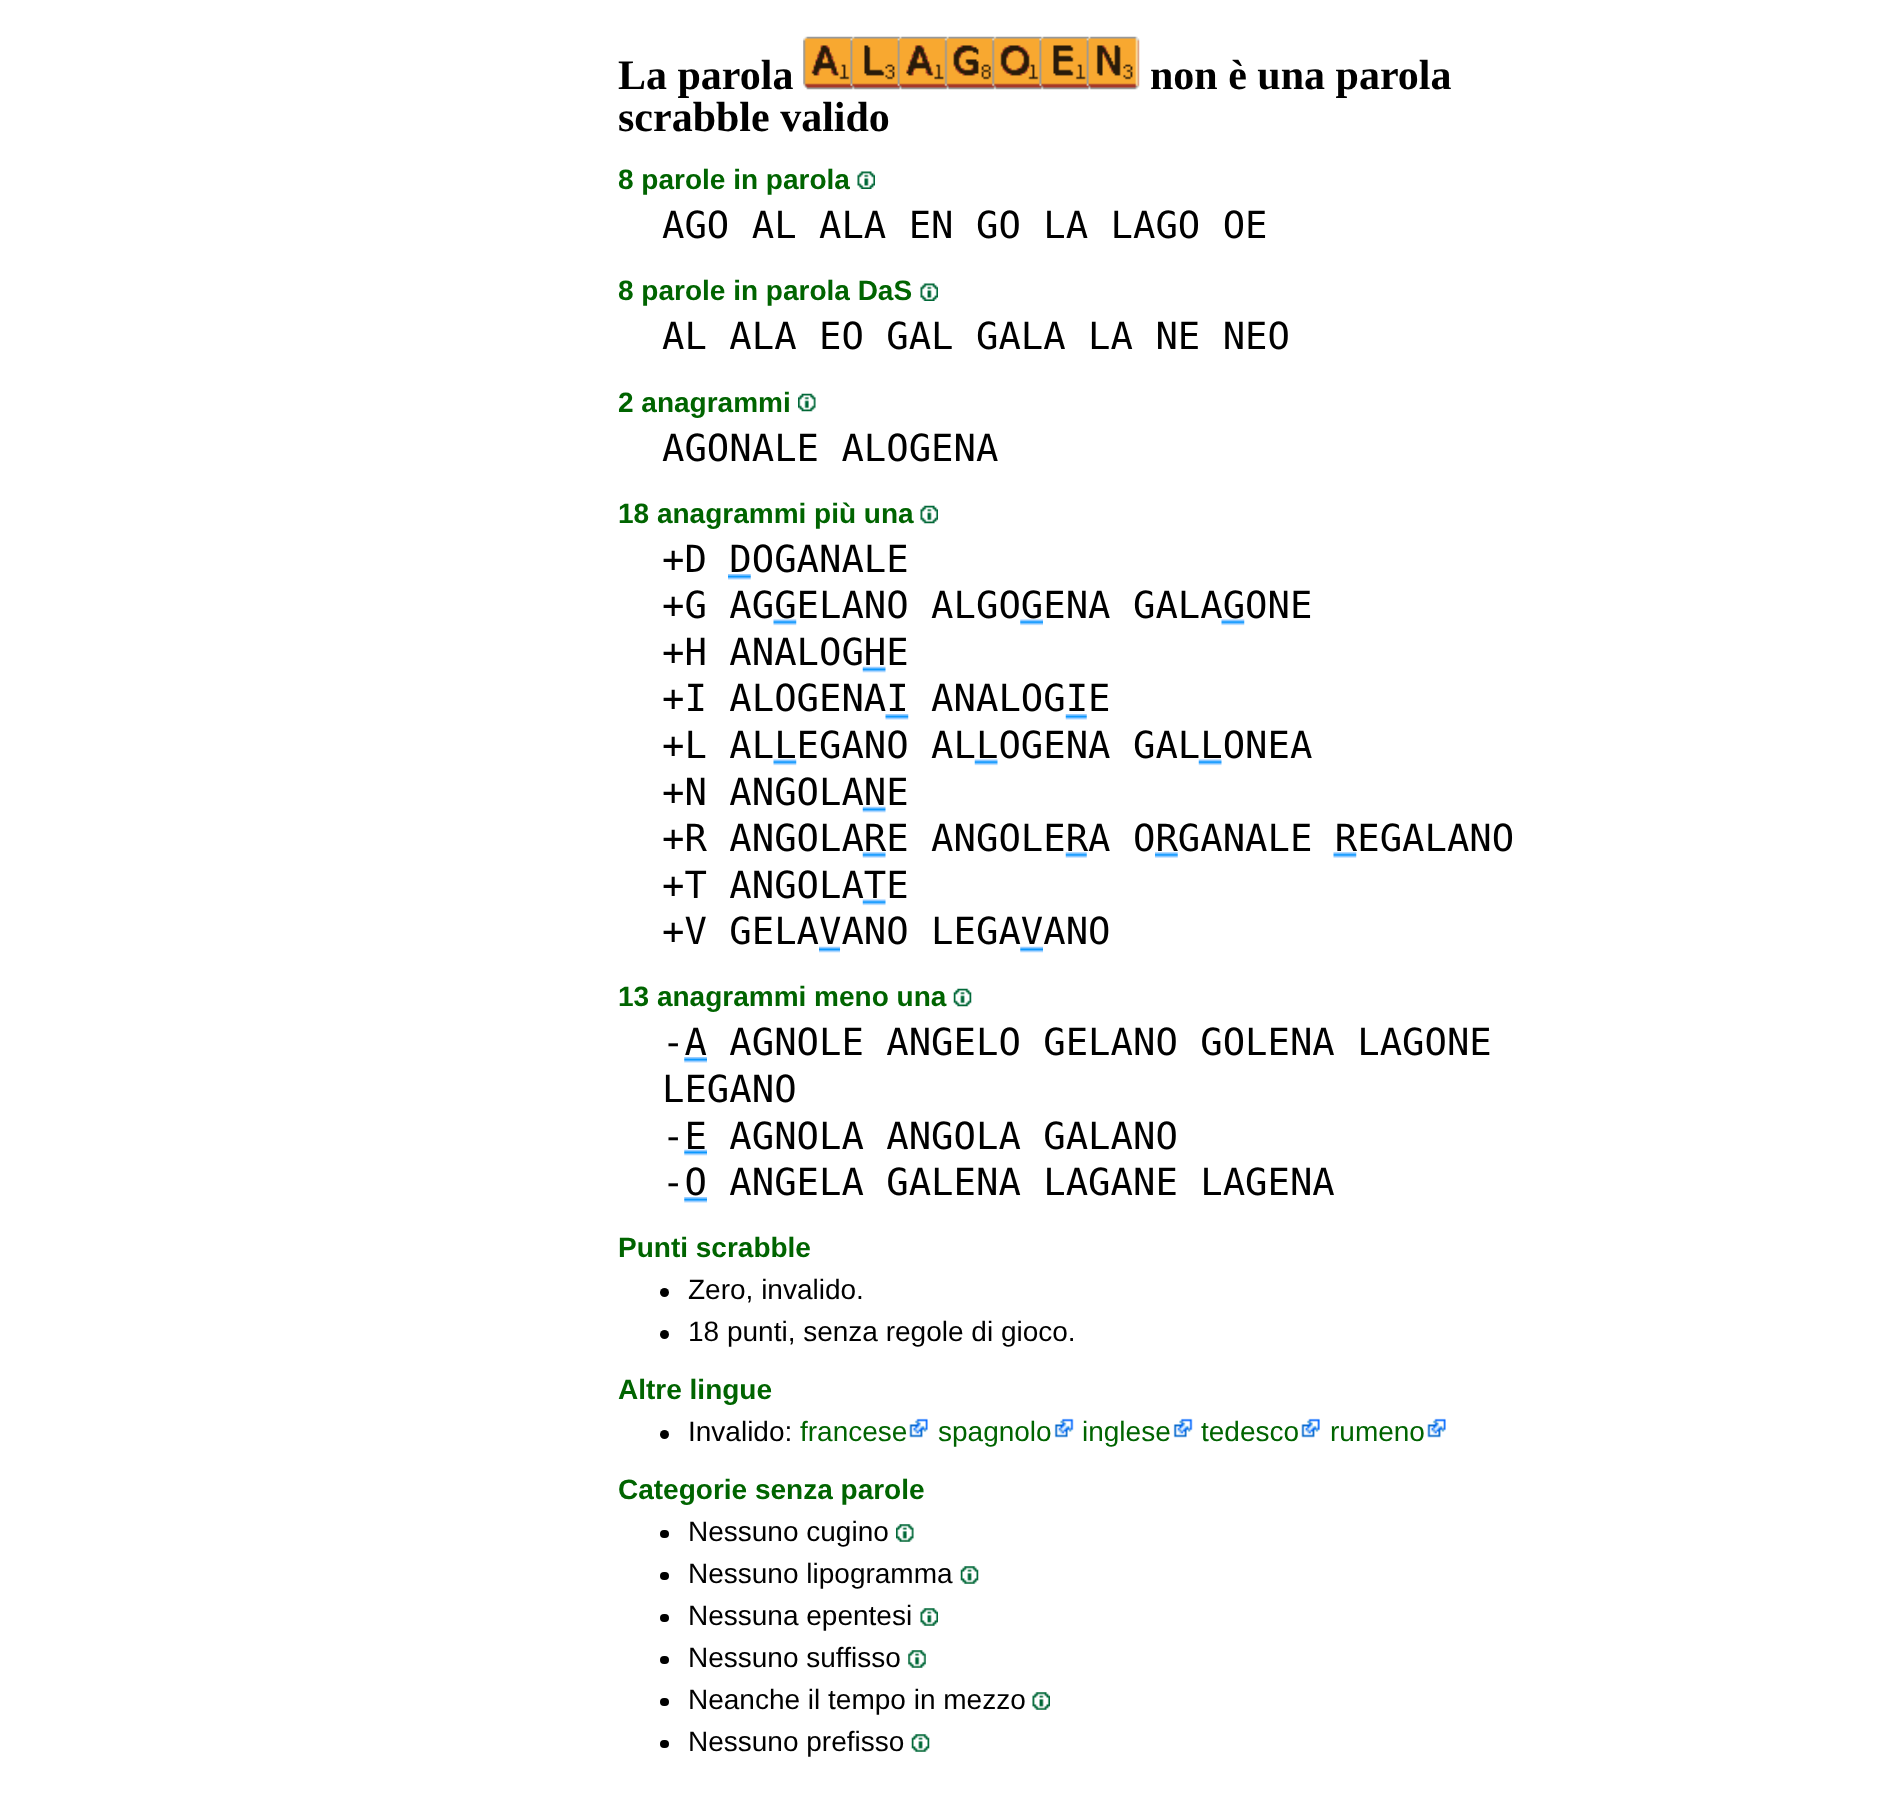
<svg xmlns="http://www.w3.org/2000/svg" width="1897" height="1796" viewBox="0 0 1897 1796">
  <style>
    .t1 { font: bold 42px Liberation Serif; fill: #000; }
    .t2 { font: bold 28px Liberation Sans; fill: #006400; }
    .t3 { font: 37.25px DejaVu Sans Mono; fill: #000; }
    .t4 { font: 28px Liberation Sans; fill: #000; }
    .t5 { font: 28px Liberation Sans; fill: #006400; }
  </style>
  <rect width="100%" height="100%" fill="#fff"/>
  <text x="618" y="89" class="t1">La parola</text>
  <image x="803" y="36" width="337" height="54" href="images/1.png"/>
  <text x="1150" y="89" class="t1">non è una parola</text>
  <text x="618" y="131" class="t1">scrabble valido</text>
  <text x="618" y="189" class="t2">8 parole in parola</text>
  <image x="857" y="171" width="18" height="18" href="images/2.png"/>
  <text x="662" y="238" class="t3">AGO AL ALA EN GO LA LAGO OE</text>
  <text x="618" y="300" class="t2">8 parole in parola DaS</text>
  <image x="920" y="283" width="18" height="18" href="images/3.png"/>
  <text x="662" y="349" class="t3">AL ALA EO GAL GALA LA NE NEO</text>
  <text x="618" y="412" class="t2">2 anagrammi</text>
  <image x="798" y="393" width="18" height="19" href="images/4.png"/>
  <text x="662" y="461" class="t3">AGONALE ALOGENA</text>
  <text x="618" y="523" class="t2">18 anagrammi più una</text>
  <image x="920" y="505" width="18" height="19" href="images/5.png"/>
  <text x="662" y="572" class="t3">+D DOGANALE</text>
  <image x="728" y="574" width="23" height="6" href="images/6.png"/>
  <text x="662" y="618" class="t3">+G AGGELANO ALGOGENA GALAGONE</text>
  <image x="773" y="619" width="24" height="7" href="images/7.png"/>
  <image x="1020" y="619" width="23" height="7" href="images/8.png"/>
  <image x="1221" y="619" width="24" height="7" href="images/7.png"/>
  <text x="662" y="665" class="t3">+H ANALOGHE</text>
  <image x="862" y="666" width="24" height="7" href="images/9.png"/>
  <text x="662" y="711" class="t3">+I ALOGENAI ANALOGIE</text>
  <image x="885" y="714" width="24" height="6" href="images/10.png"/>
  <image x="1065" y="714" width="22" height="6" href="images/11.png"/>
  <text x="662" y="758" class="t3">+L ALLEGANO ALLOGENA GALLONEA</text>
  <image x="773" y="759" width="24" height="7" href="images/7.png"/>
  <image x="974" y="759" width="24" height="7" href="images/12.png"/>
  <image x="1198" y="759" width="24" height="7" href="images/12.png"/>
  <text x="662" y="805" class="t3">+N ANGOLANE</text>
  <image x="862" y="806" width="24" height="7" href="images/13.png"/>
  <text x="662" y="851" class="t3">+R ANGOLARE ANGOLERA ORGANALE REGALANO</text>
  <image x="862" y="852" width="24" height="6" href="images/14.png"/>
  <image x="1065" y="852" width="22" height="6" href="images/15.png"/>
  <image x="1155" y="852" width="23" height="6" href="images/16.png"/>
  <image x="1333" y="852" width="24" height="6" href="images/17.png"/>
  <text x="662" y="898" class="t3">+T ANGOLATE</text>
  <image x="862" y="899" width="24" height="7" href="images/12.png"/>
  <text x="662" y="944" class="t3">+V GELAVANO LEGAVANO</text>
  <image x="819" y="946" width="21" height="7" href="images/18.png"/>
  <image x="1020" y="946" width="23" height="7" href="images/19.png"/>
  <text x="618" y="1006" class="t2">13 anagrammi meno una</text>
  <image x="953" y="988" width="19" height="19" href="images/20.png"/>
  <text x="662" y="1055" class="t3">-A AGNOLE ANGELO GELANO GOLENA LAGONE</text>
  <image x="684" y="1057" width="23" height="6" href="images/21.png"/>
  <text x="662" y="1102" class="t3">LEGANO</text>
  <text x="662" y="1149" class="t3">-E AGNOLA ANGOLA GALANO</text>
  <image x="684" y="1149" width="23" height="7" href="images/22.png"/>
  <text x="662" y="1195" class="t3">-O ANGELA GALENA LAGANE LAGENA</text>
  <image x="684" y="1197" width="23" height="6" href="images/21.png"/>
  <text x="618" y="1257" class="t2">Punti scrabble</text>
  <circle cx="664.5" cy="1292.5" r="4.5" fill="#000"/>
  <text x="688" y="1299" class="t4">Zero, invalido.</text>
  <circle cx="664.5" cy="1334.5" r="4.5" fill="#000"/>
  <text x="688" y="1341" class="t4">18 punti, senza regole di gioco.</text>
  <text x="618" y="1399" class="t2">Altre lingue</text>
  <circle cx="664.5" cy="1434.5" r="4.5" fill="#000"/>
  <text x="688" y="1441" class="t4">Invalido:</text>
  <text x="800" y="1441" class="t5">francese</text>
  <image x="909" y="1418" width="19" height="20" href="images/23.png"/>
  <text x="938" y="1441" class="t5">spagnolo</text>
  <image x="1054" y="1418" width="20" height="20" href="images/24.png"/>
  <text x="1082" y="1441" class="t5">inglese</text>
  <image x="1173" y="1418" width="20" height="20" href="images/24.png"/>
  <text x="1201" y="1441" class="t5">tedesco</text>
  <image x="1301" y="1418" width="19" height="20" href="images/25.png"/>
  <text x="1330" y="1441" class="t5">rumeno</text>
  <image x="1427" y="1418" width="19" height="20" href="images/23.png"/>
  <text x="618" y="1499" class="t2">Categorie senza parole</text>
  <rect x="660" y="1530" width="9" height="8" rx="4" fill="#000"/>
  <text x="688" y="1541" class="t4">Nessuno cugino</text>
  <image x="896" y="1524" width="18" height="18" href="images/26.png"/>
  <rect x="660" y="1572" width="9" height="8" rx="4" fill="#000"/>
  <text x="688" y="1583" class="t4">Nessuno lipogramma</text>
  <image x="960" y="1566" width="19" height="18" href="images/27.png"/>
  <rect x="660" y="1614" width="9" height="8" rx="4" fill="#000"/>
  <text x="688" y="1625" class="t4">Nessuna epentesi</text>
  <image x="920" y="1608" width="18" height="18" href="images/28.png"/>
  <rect x="660" y="1656" width="9" height="8" rx="4" fill="#000"/>
  <text x="688" y="1667" class="t4">Nessuno suffisso</text>
  <image x="908" y="1650" width="18" height="18" href="images/29.png"/>
  <rect x="660" y="1698" width="9" height="8" rx="4" fill="#000"/>
  <text x="688" y="1709" class="t4">Neanche il tempo in mezzo</text>
  <image x="1032" y="1692" width="18" height="18" href="images/30.png"/>
  <rect x="660" y="1740" width="9" height="8" rx="4" fill="#000"/>
  <text x="688" y="1751" class="t4">Nessuno prefisso</text>
  <image x="911" y="1734" width="19" height="18" href="images/27.png"/>
</svg>
